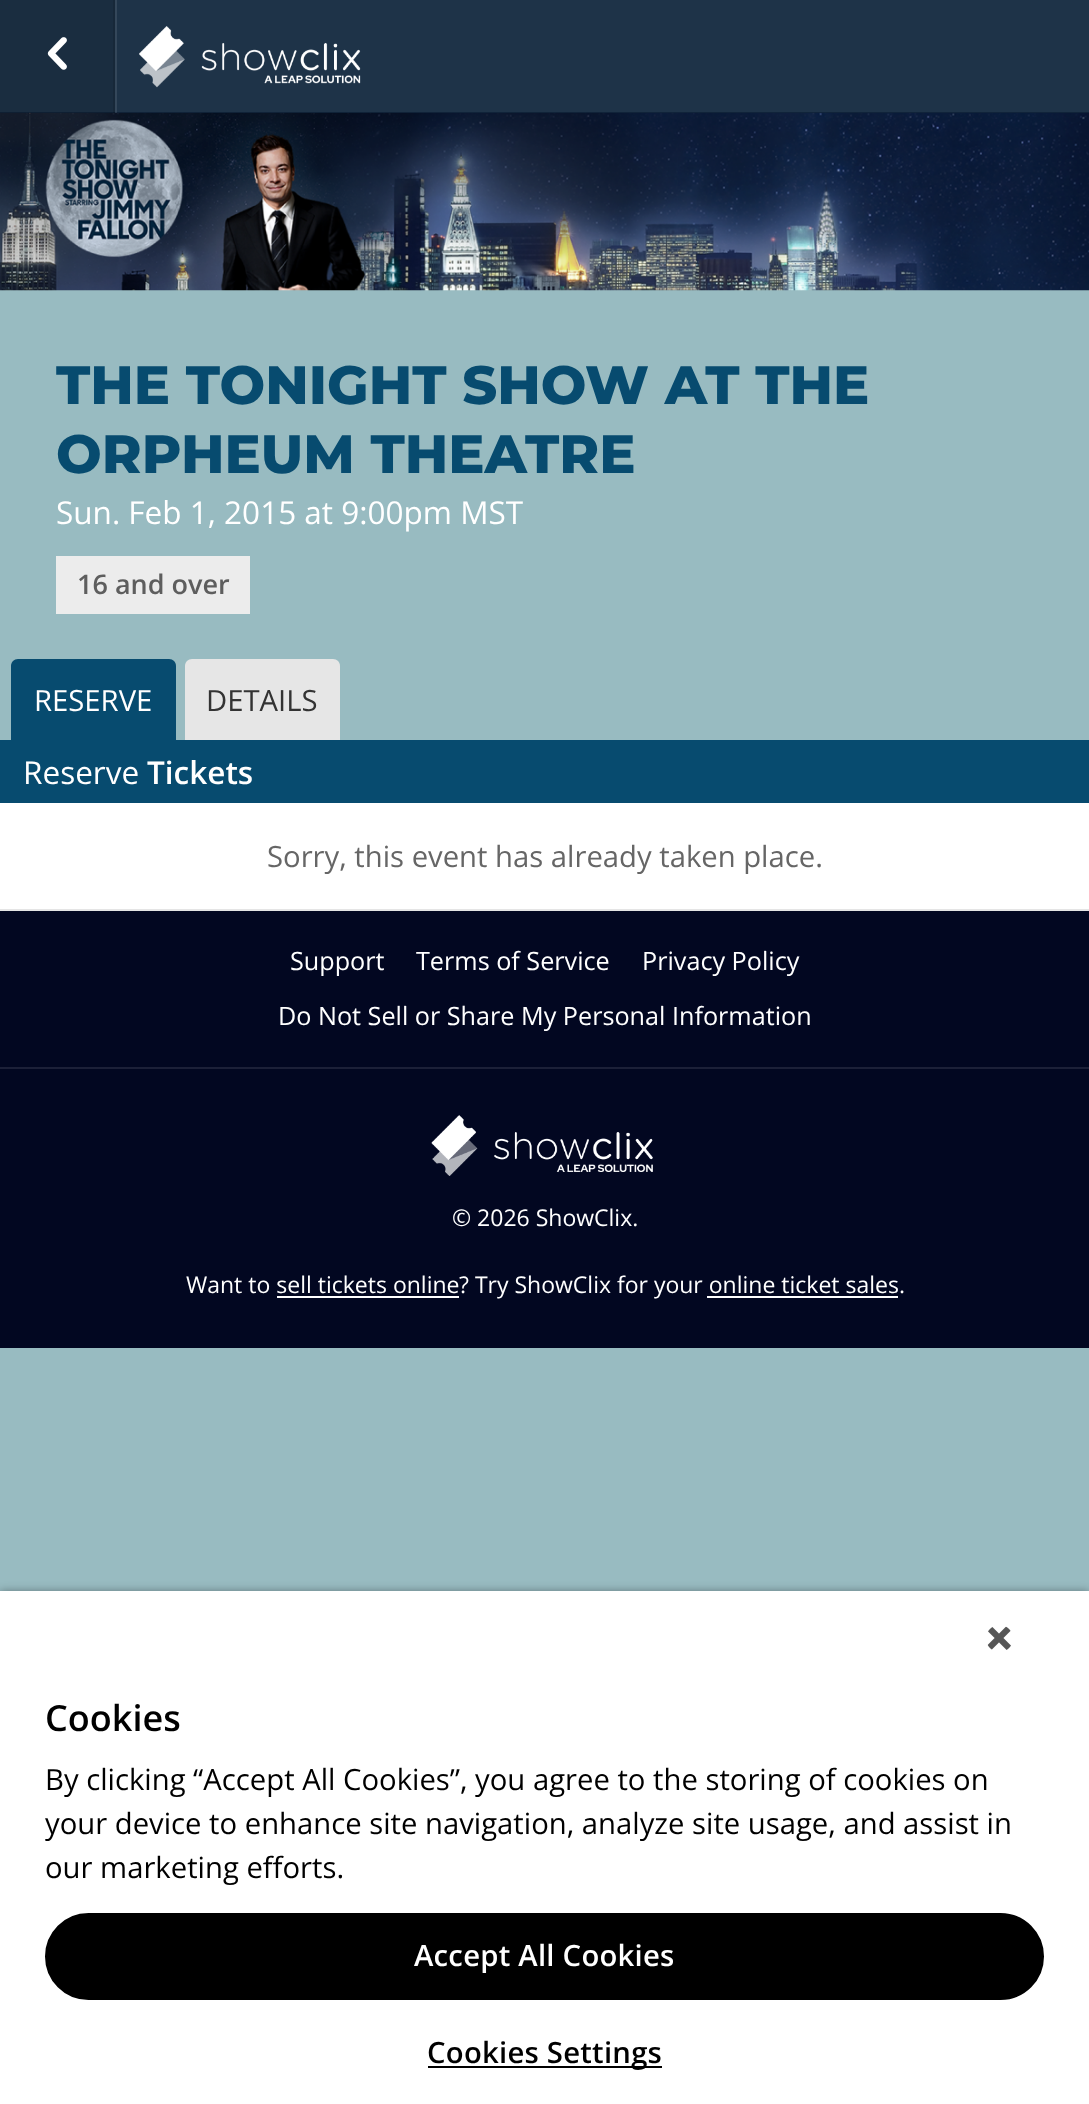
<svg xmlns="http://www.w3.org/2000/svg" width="1089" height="2104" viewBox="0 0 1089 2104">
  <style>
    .t1 { font: 800 54px Montserrat; fill: #074b6f; }
    .t2 { font: 31.5px Open Sans; fill: #fff; }
    .t3 { font: 600 27px Open Sans; fill: #5e5e5e; }
    .t4 { font: 29.25px Open Sans; fill: #fff; }
    .t5 { font: 29.25px Open Sans; fill: #333; }
    .t6 { font: 600 31.5px Open Sans; fill: #fff; }
    .t7 { font: 29.25px Open Sans; fill: #666; }
    .t8 { font: 25.2px Open Sans; fill: #fff; }
    .t9 { font: 23px Open Sans; fill: #fff; }
    .t10 { font: 600 36px Open Sans; fill: #000; }
    .t11 { font: 29.25px Open Sans; fill: #000; }
    .t12 { font: 600 29.25px Open Sans; letter-spacing: 0.25px; fill: #fff; }
    .t13 { font: 600 29.25px Open Sans; letter-spacing: 0.25px; fill: #000; }
  </style>
  <rect width="100%" height="100%" fill="#98bbc1"/>
  <image x="0" y="112" width="1089" height="179" href="images/3.png"/>
  <rect x="0" y="0" width="1089" height="113" fill="#001229cc"/>
  <rect x="115" y="0" width="2" height="113" fill="#ffffff1a"/>
  <rect x="0" y="0" width="115" height="113" fill="#0000001a"/>
  <rect x="113" y="0" width="2" height="113" fill="#0000001a"/>
  <image x="47" y="37" width="20" height="33" href="images/1.png"/>
  <image x="139" y="26" width="222" height="62" href="images/2.png"/>
  <text x="56" y="404" class="t1">THE TONIGHT SHOW AT THE</text>
  <text x="56" y="473" class="t1">ORPHEUM THEATRE</text>
  <text x="56" y="524" class="t2">Sun. Feb 1, 2015 at 9:00pm MST</text>
  <rect x="56" y="556" width="194" height="58" fill="#ececec"/>
  <text x="77" y="594" class="t3">16 and over</text>
  <path d="M18 659H169C173 659 176 662 176 666V740H11V666C11 662 14 659 18 659Z" fill="#074b6f"/>
  <text x="34" y="711" class="t4">RESERVE</text>
  <path d="M192 659H333C337 659 340 662 340 666V740H185V666C185 662 188 659 192 659Z" fill="#e6e6e6"/>
  <text x="206" y="711" class="t5">DETAILS</text>
  <rect x="0" y="740" width="1089" height="63" fill="#074b6f"/>
  <text x="23" y="784" class="t2">Reserve</text>
  <text x="147" y="784" class="t6">Tickets</text>
  <rect x="0" y="803" width="1089" height="106" fill="#fff"/>
  <rect x="0" y="909" width="1089" height="2" fill="#e5e5e5"/>
  <text x="267" y="867" class="t7">Sorry, this event has already taken place.</text>
  <rect x="0" y="911" width="1089" height="437" fill="#020721"/>
  <rect x="0" y="1067" width="1089" height="2" fill="#1c2038"/>
  <text x="290" y="970" class="t8">Support</text>
  <text x="416" y="970" class="t8">Terms of Service</text>
  <text x="642" y="970" class="t8">Privacy Policy</text>
  <text x="278" y="1025" class="t8">Do Not Sell or Share My Personal Information</text>
  <image x="431" y="1115" width="222" height="61" href="images/4.png"/>
  <text x="452" y="1226" class="t9">© 2026 ShowClix.</text>
  <text x="186" y="1293" class="t9">Want to sell tickets online</text>
  <rect x="277" y="1296" width="182" height="2" fill="#fff"/>
  <text x="459" y="1293" class="t9">? Try ShowClix for your online ticket sales.</text>
  <rect x="707" y="1296" width="191" height="2" fill="#fff"/>
  <rect x="0" y="1591" width="1089" height="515" fill="#00000059" filter="blur(4.5px)"/>
  <rect x="0" y="1591" width="1089" height="513" fill="#fff"/>
  <image x="987" y="1626" width="24" height="24" href="images/5.png"/>
  <text x="45" y="1731" class="t10">Cookies</text>
  <text x="45" y="1790" class="t11">By clicking “Accept All Cookies”, you agree to the storing of cookies on</text>
  <text x="45" y="1834" class="t11">your device to enhance site navigation, analyze site usage, and assist in</text>
  <text x="45" y="1878" class="t11">our marketing efforts.</text>
  <rect x="46" y="1914" width="997" height="85" rx="42.5" fill="#000" stroke="#000" stroke-width="2"/>
  <text x="414" y="1966" class="t12">Accept All Cookies</text>
  <rect x="428" y="2066" width="234" height="2" fill="#000"/>
  <text x="427" y="2063" class="t13">Cookies Settings</text>
</svg>
